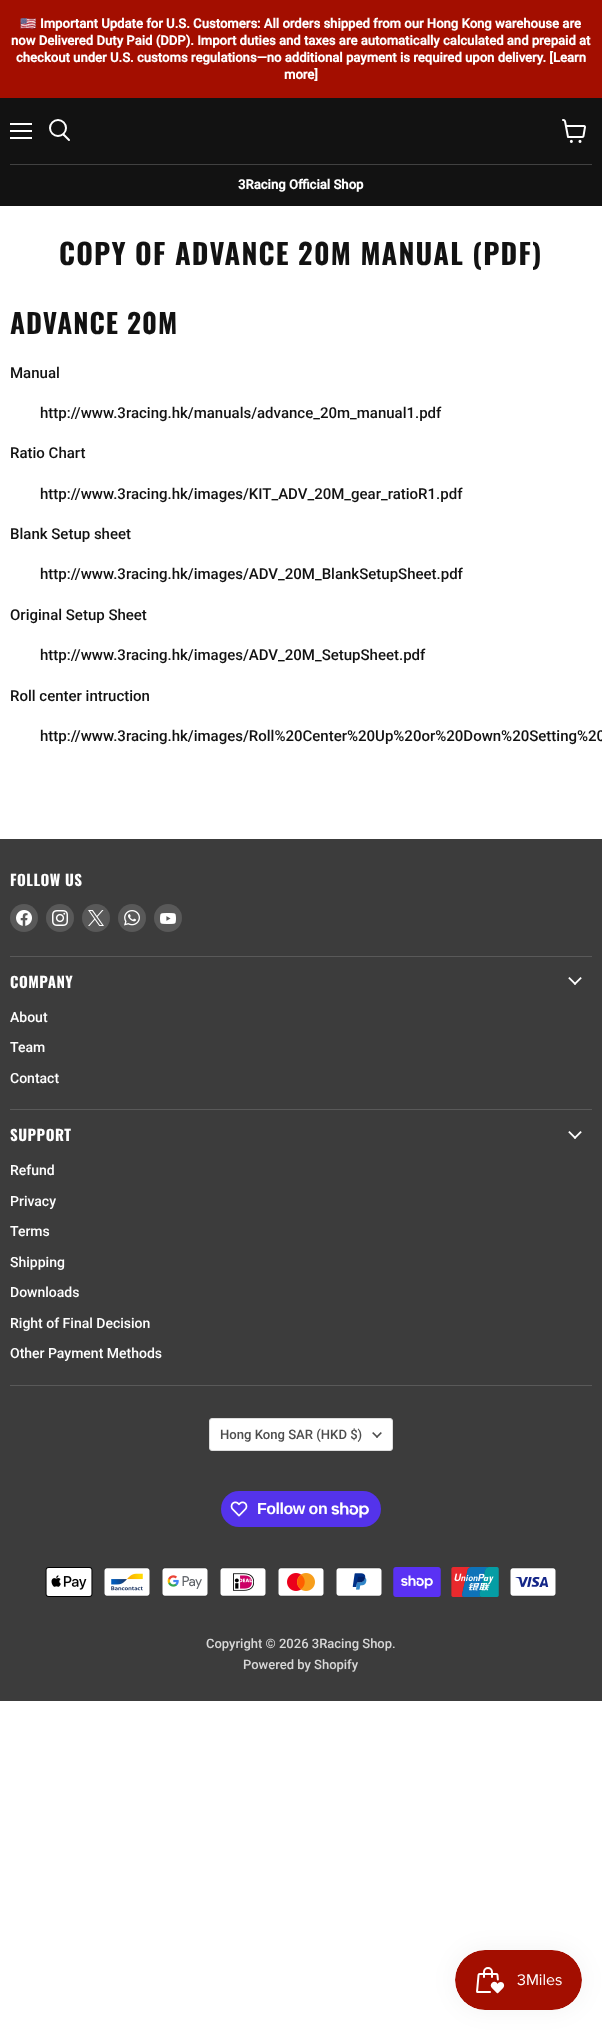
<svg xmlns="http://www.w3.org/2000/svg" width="602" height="2030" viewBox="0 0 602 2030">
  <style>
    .t1 { font: bold 13.1px Noto Color Emoji; fill: #fff; }
    .t2 { font: bold 13.1px Roboto; fill: #fff; }
    .t3 { font: bold 28.5px Oswald; letter-spacing: 1.15px; fill: #121212; }
    .t4 { font: bold 27.25px Oswald; letter-spacing: 1px; fill: #121212; }
    .t5 { font: 500 15px Roboto; fill: #121212; }
    .t6 { font: bold 15px Oswald; letter-spacing: 0.5px; fill: #fff; }
    .t7 { font: 500 14px Roboto; fill: #fff; }
    .t8 { font: 500 13.1px Roboto; fill: #4d4d4d; }
    .t9 { font: bold 16px Liberation Sans; letter-spacing: -0.5px; fill: #fff; }
    .t10 { font: 500 13px Roboto; fill: #d8d8d8; }
  </style>
  <rect width="100%" height="100%" fill="#fff"/>
  <rect x="0" y="0" width="602" height="98" fill="#a30e00"/>
  <text x="20" y="28" class="t1">🇺🇸</text>
  <text x="40" y="28" class="t2">Important Update for U.S. Customers: All orders shipped from our Hong Kong warehouse are</text>
  <text x="11" y="45" class="t2">now Delivered Duty Paid (DDP). Import duties and taxes are automatically calculated and prepaid at</text>
  <text x="16" y="62" class="t2">checkout under U.S. customs regulations—no additional payment is required upon delivery. [Learn</text>
  <text x="284" y="79" class="t2">more]</text>
  <rect x="0" y="98" width="602" height="108" fill="#121212"/>
  <rect x="10" y="123" width="22" height="2" fill="#fff"/>
  <rect x="10" y="130" width="22" height="2" fill="#fff"/>
  <rect x="10" y="137" width="22" height="2" fill="#fff"/>
  <path d="M69 140L63.5 134.5" fill="none" stroke="#fff" stroke-width="2" stroke-linecap="round"/>
  <circle cx="58" cy="128" r="8" fill="none" stroke="#fff" stroke-width="2"/>
  <image x="562" y="119" width="24" height="24" href="images/1.png"/>
  <rect x="10" y="164" width="582" height="1" fill="#414141"/>
  <text x="238" y="189" class="t2">3Racing Official Shop</text>
  <text x="59" y="265" class="t3">COPY OF ADVANCE 20M MANUAL (PDF)</text>
  <text x="10" y="334" class="t4">ADVANCE 20M</text>
  <text x="10" y="378" class="t5">Manual</text>
  <text x="40" y="418" class="t5">http://www.3racing.hk/manuals/advance_20m_manual1.pdf</text>
  <text x="10" y="458" class="t5">Ratio Chart</text>
  <text x="40" y="499" class="t5">http://www.3racing.hk/images/KIT_ADV_20M_gear_ratioR1.pdf</text>
  <text x="10" y="539" class="t5">Blank Setup sheet</text>
  <text x="40" y="579" class="t5">http://www.3racing.hk/images/ADV_20M_BlankSetupSheet.pdf</text>
  <text x="10" y="620" class="t5">Original Setup Sheet</text>
  <text x="40" y="660" class="t5">http://www.3racing.hk/images/ADV_20M_SetupSheet.pdf</text>
  <text x="10" y="701" class="t5">Roll center intruction</text>
  <text x="40" y="741" class="t5">http://www.3racing.hk/images/Roll%20Center%20Up%20or%20Down%20Setting%20</text>
  <rect x="0" y="839" width="602" height="862" fill="#3c3c3c"/>
  <rect x="10" y="956" width="582" height="1" fill="#595959"/>
  <text x="10" y="886" class="t6">FOLLOW US</text>
  <circle cx="24" cy="918" r="14" fill="#595959"/>
  <image x="16" y="910" width="16" height="16" href="images/2.png"/>
  <circle cx="60" cy="918" r="14" fill="#595959"/>
  <image x="52" y="910" width="16" height="16" href="images/3.png"/>
  <circle cx="96" cy="918" r="14" fill="#595959"/>
  <image x="88" y="910" width="16" height="16" href="images/4.png"/>
  <circle cx="132" cy="918" r="14" fill="#595959"/>
  <image x="124" y="910" width="16" height="16" href="images/5.png"/>
  <circle cx="168" cy="918" r="14" fill="#595959"/>
  <image x="160" y="913" width="16" height="11" href="images/6.png"/>
  <rect x="10" y="1109" width="582" height="1" fill="#595959"/>
  <text x="10" y="988" class="t6">COMPANY</text>
  <image x="568" y="977" width="14" height="8" href="images/7.png"/>
  <text x="10" y="1022" class="t7">About</text>
  <text x="10" y="1052" class="t7">Team</text>
  <text x="10" y="1083" class="t7">Contact</text>
  <rect x="10" y="1385" width="582" height="1" fill="#595959"/>
  <text x="10" y="1141" class="t6">SUPPORT</text>
  <image x="568" y="1131" width="14" height="8" href="images/7.png"/>
  <text x="10" y="1175" class="t7">Refund</text>
  <text x="10" y="1206" class="t7">Privacy</text>
  <text x="10" y="1236" class="t7">Terms</text>
  <text x="10" y="1267" class="t7">Shipping</text>
  <text x="10" y="1297" class="t7">Downloads</text>
  <text x="10" y="1328" class="t7">Right of Final Decision</text>
  <text x="10" y="1358" class="t7">Other Payment Methods</text>
  <rect x="209.5" y="1418.5" width="183" height="32" rx="2.5" fill="#fff" stroke="#ddd"/>
  <text x="220" y="1439" class="t8">Hong Kong SAR (HKD $)</text>
  <image x="372" y="1432" width="10" height="6" href="images/8.png"/>
  <rect x="221" y="1491" width="160" height="36" rx="18" fill="#5433eb"/>
  <image x="230" y="1501" width="18" height="16" href="images/9.png"/>
  <text x="257" y="1514" class="t9">Follow on</text>
  <image x="331" y="1502" width="38" height="16" href="images/10.png"/>
  <image x="45" y="1567" width="48" height="30" href="images/11.png"/>
  <image x="104" y="1567" width="46" height="30" href="images/12.png"/>
  <image x="162" y="1567" width="46" height="30" href="images/13.png"/>
  <image x="220" y="1567" width="46" height="30" href="images/14.png"/>
  <image x="278" y="1567" width="46" height="30" href="images/15.png"/>
  <image x="336" y="1567" width="46" height="30" href="images/16.png"/>
  <image x="393" y="1567" width="48" height="30" href="images/17.png"/>
  <image x="451" y="1567" width="48" height="30" href="images/18.png"/>
  <image x="510" y="1567" width="46" height="30" href="images/19.png"/>
  <text x="206" y="1648" class="t10">Copyright © 2026 3Racing Shop.</text>
  <text x="243" y="1669" class="t10">Powered by Shopify</text>
  <rect x="455" y="1950" width="127" height="60" rx="30" fill="#0000000d" filter="blur(12.5px)"/>
  <image x="455" y="1950" width="127" height="60" href="images/20.png"/>
</svg>
